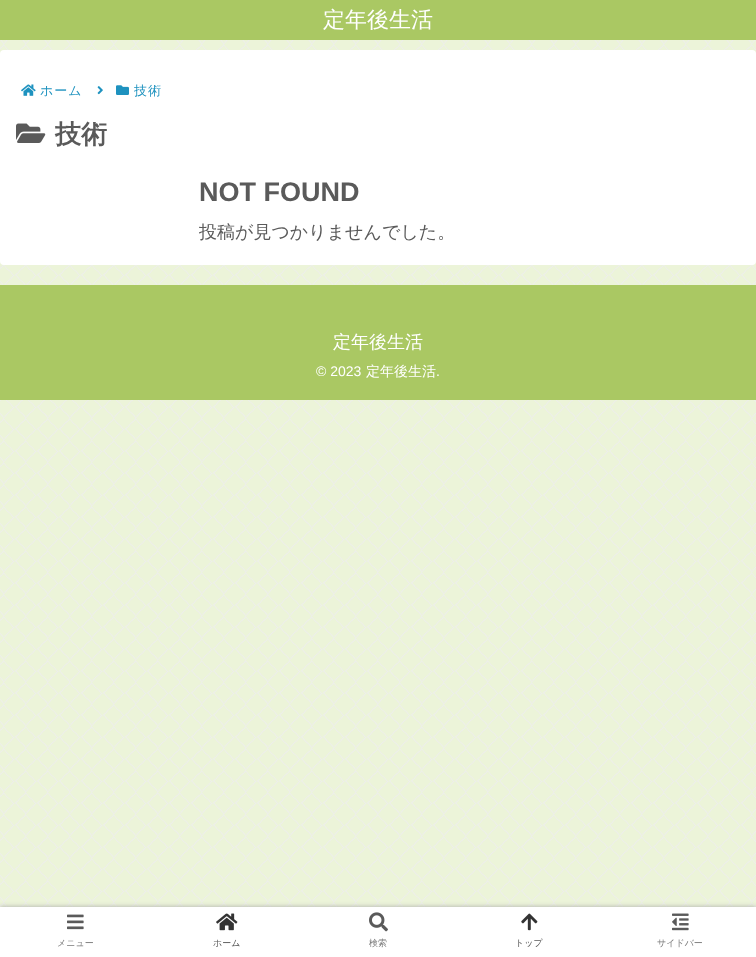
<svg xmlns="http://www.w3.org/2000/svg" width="756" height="957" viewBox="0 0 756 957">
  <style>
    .t1 { font: 500 22px WenQuanYi Zen Hei; fill: #fff; }
    .t2 { font: 500 13px WenQuanYi Zen Hei; letter-spacing: 1px; fill: #1e92bf; }
    .t3 { font: bold 26px WenQuanYi Zen Hei; fill: #5a5a5a; }
    .t4 { font: bold 27px Liberation Sans; fill: #5a5a5a; }
    .t5 { font: 500 18px WenQuanYi Zen Hei; fill: #5a5a5a; }
    .t6 { font: 500 18px WenQuanYi Zen Hei; fill: #fff; }
    .t7 { font: 14px Liberation Sans; fill: #fff; }
    .t8 { font: 500 14px WenQuanYi Zen Hei; fill: #fff; }
    .t9 { font: 500 9px WenQuanYi Zen Hei; fill: #7b7b7b; }
    .t10 { font: 500 9px WenQuanYi Zen Hei; fill: #5a5a5a; }
  </style>
  <rect width="100%" height="100%" fill="#ecf4d9"/>
  <image x="0" y="40" width="756" height="867" href="images/1.png"/>
  <rect x="0" y="0" width="756" height="40" fill="#aac863"/>
  <text x="323" y="27" class="t1">定年後生活</text>
  <rect x="0" y="50" width="756" height="215" rx="4" fill="#fff"/>
  <image x="21" y="84" width="15" height="12" href="images/2.png"/>
  <text x="40" y="95" class="t2">ホーム</text>
  <image x="97" y="86" width="6" height="9" href="images/3.png"/>
  <image x="116" y="85" width="13" height="10" href="images/4.png"/>
  <text x="134" y="95" class="t2">技術</text>
  <image x="16" y="123" width="30" height="20" href="images/5.png"/>
  <text x="55" y="143" class="t3">技術</text>
  <text x="199" y="201" class="t4">NOT FOUND</text>
  <text x="199" y="238" class="t5">投稿が見つかりませんでした。</text>
  <rect x="0" y="285" width="756" height="115" fill="#aac863"/>
  <text x="333" y="348" class="t6">定年後生活</text>
  <text x="316" y="376" class="t7">© 2023</text>
  <text x="366" y="376" class="t8">定年後生活</text>
  <text x="436" y="376" class="t7">.</text>
  <rect x="0" y="907" width="756" height="50" fill="#a9a9a9" filter="blur(2.5px)"/>
  <rect x="0" y="907" width="756" height="50" fill="#fff"/>
  <image x="67" y="914" width="17" height="16" href="images/6.png"/>
  <text x="57" y="946" class="t9">メニュー</text>
  <image x="216" y="913" width="22" height="18" href="images/7.png"/>
  <text x="213" y="946" class="t10">ホーム</text>
  <image x="369" y="912" width="19" height="20" href="images/8.png"/>
  <text x="369" y="946" class="t9">検索</text>
  <image x="521" y="913" width="17" height="18" href="images/9.png"/>
  <text x="515" y="946" class="t10">トップ</text>
  <image x="672" y="913" width="17" height="18" href="images/10.png"/>
  <text x="657" y="946" class="t9">サイドバー</text>
</svg>
